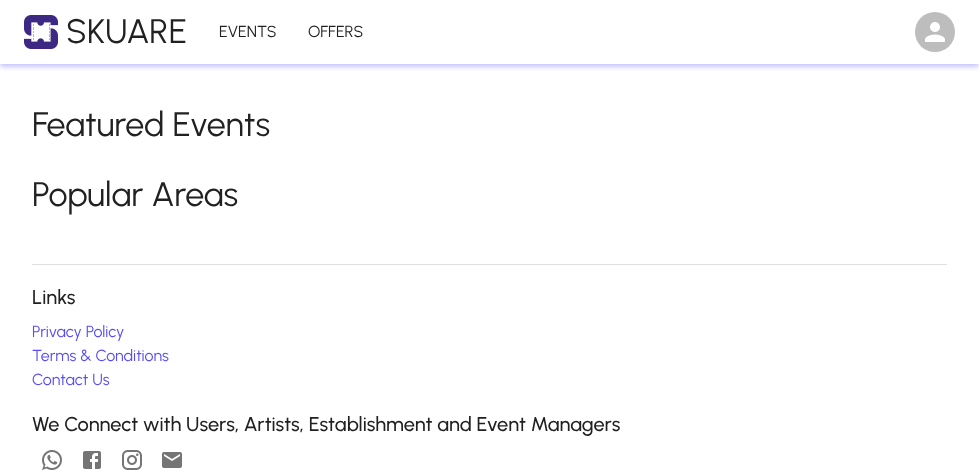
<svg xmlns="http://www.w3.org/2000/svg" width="979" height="474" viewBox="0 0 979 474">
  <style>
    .t1 { font: 34px Urbanist; fill: #212121; }
    .t2 { font: 16px Urbanist; fill: #212121; }
    .t3 { font: 500 20px Urbanist; fill: #212121; }
    .t4 { font: 16px Urbanist; fill: #584cf4; }
  </style>
  <defs>
    <clipPath id="clip1"><rect x="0" y="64" width="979" height="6"/></clipPath>
    <clipPath id="clip2"><rect x="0" y="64" width="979" height="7"/></clipPath>
    <clipPath id="clip3"><rect x="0" y="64" width="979" height="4"/></clipPath>
  </defs>
  <rect width="100%" height="100%" fill="#fff"/>
  <g clip-path="url(#clip1)">
    <rect x="0" y="1" width="979" height="64" fill="#584cf41f" filter="blur(5px)"/>
  </g>
  <g clip-path="url(#clip2)">
    <rect x="0" y="4" width="979" height="64" fill="#584cf424" filter="blur(2.5px)"/>
  </g>
  <g clip-path="url(#clip3)">
    <rect x="1" y="3" width="977" height="62" fill="#584cf433" filter="blur(2px)"/>
  </g>
  <image x="24" y="15" width="34" height="34" href="images/1.png"/>
  <text x="66" y="43" class="t1">SKUARE</text>
  <text x="219" y="37" class="t2">EVENTS</text>
  <text x="308" y="37" class="t2">OFFERS</text>
  <circle cx="935" cy="32" r="20" fill="#bdbdbd"/>
  <image x="925" y="22" width="20" height="20" href="images/2.png"/>
  <text x="32" y="136" class="t1">Featured Events</text>
  <text x="32" y="206" class="t1">Popular Areas</text>
  <rect x="32" y="264" width="915" height="1" fill="#e0e0e0"/>
  <text x="32" y="304" class="t3">Links</text>
  <text x="32" y="337" class="t4">Privacy Policy</text>
  <text x="32" y="361" class="t4">Terms &amp; Conditions</text>
  <text x="32" y="385" class="t4">Contact Us</text>
  <text x="32" y="431" class="t3">We Connect with Users, Artists, Establishment and Event Managers</text>
  <image x="42" y="450" width="20" height="20" href="images/3.png"/>
  <image x="83" y="451" width="18" height="18" href="images/4.png"/>
  <image x="122" y="450" width="20" height="20" href="images/5.png"/>
  <image x="162" y="452" width="20" height="16" href="images/6.png"/>
</svg>
